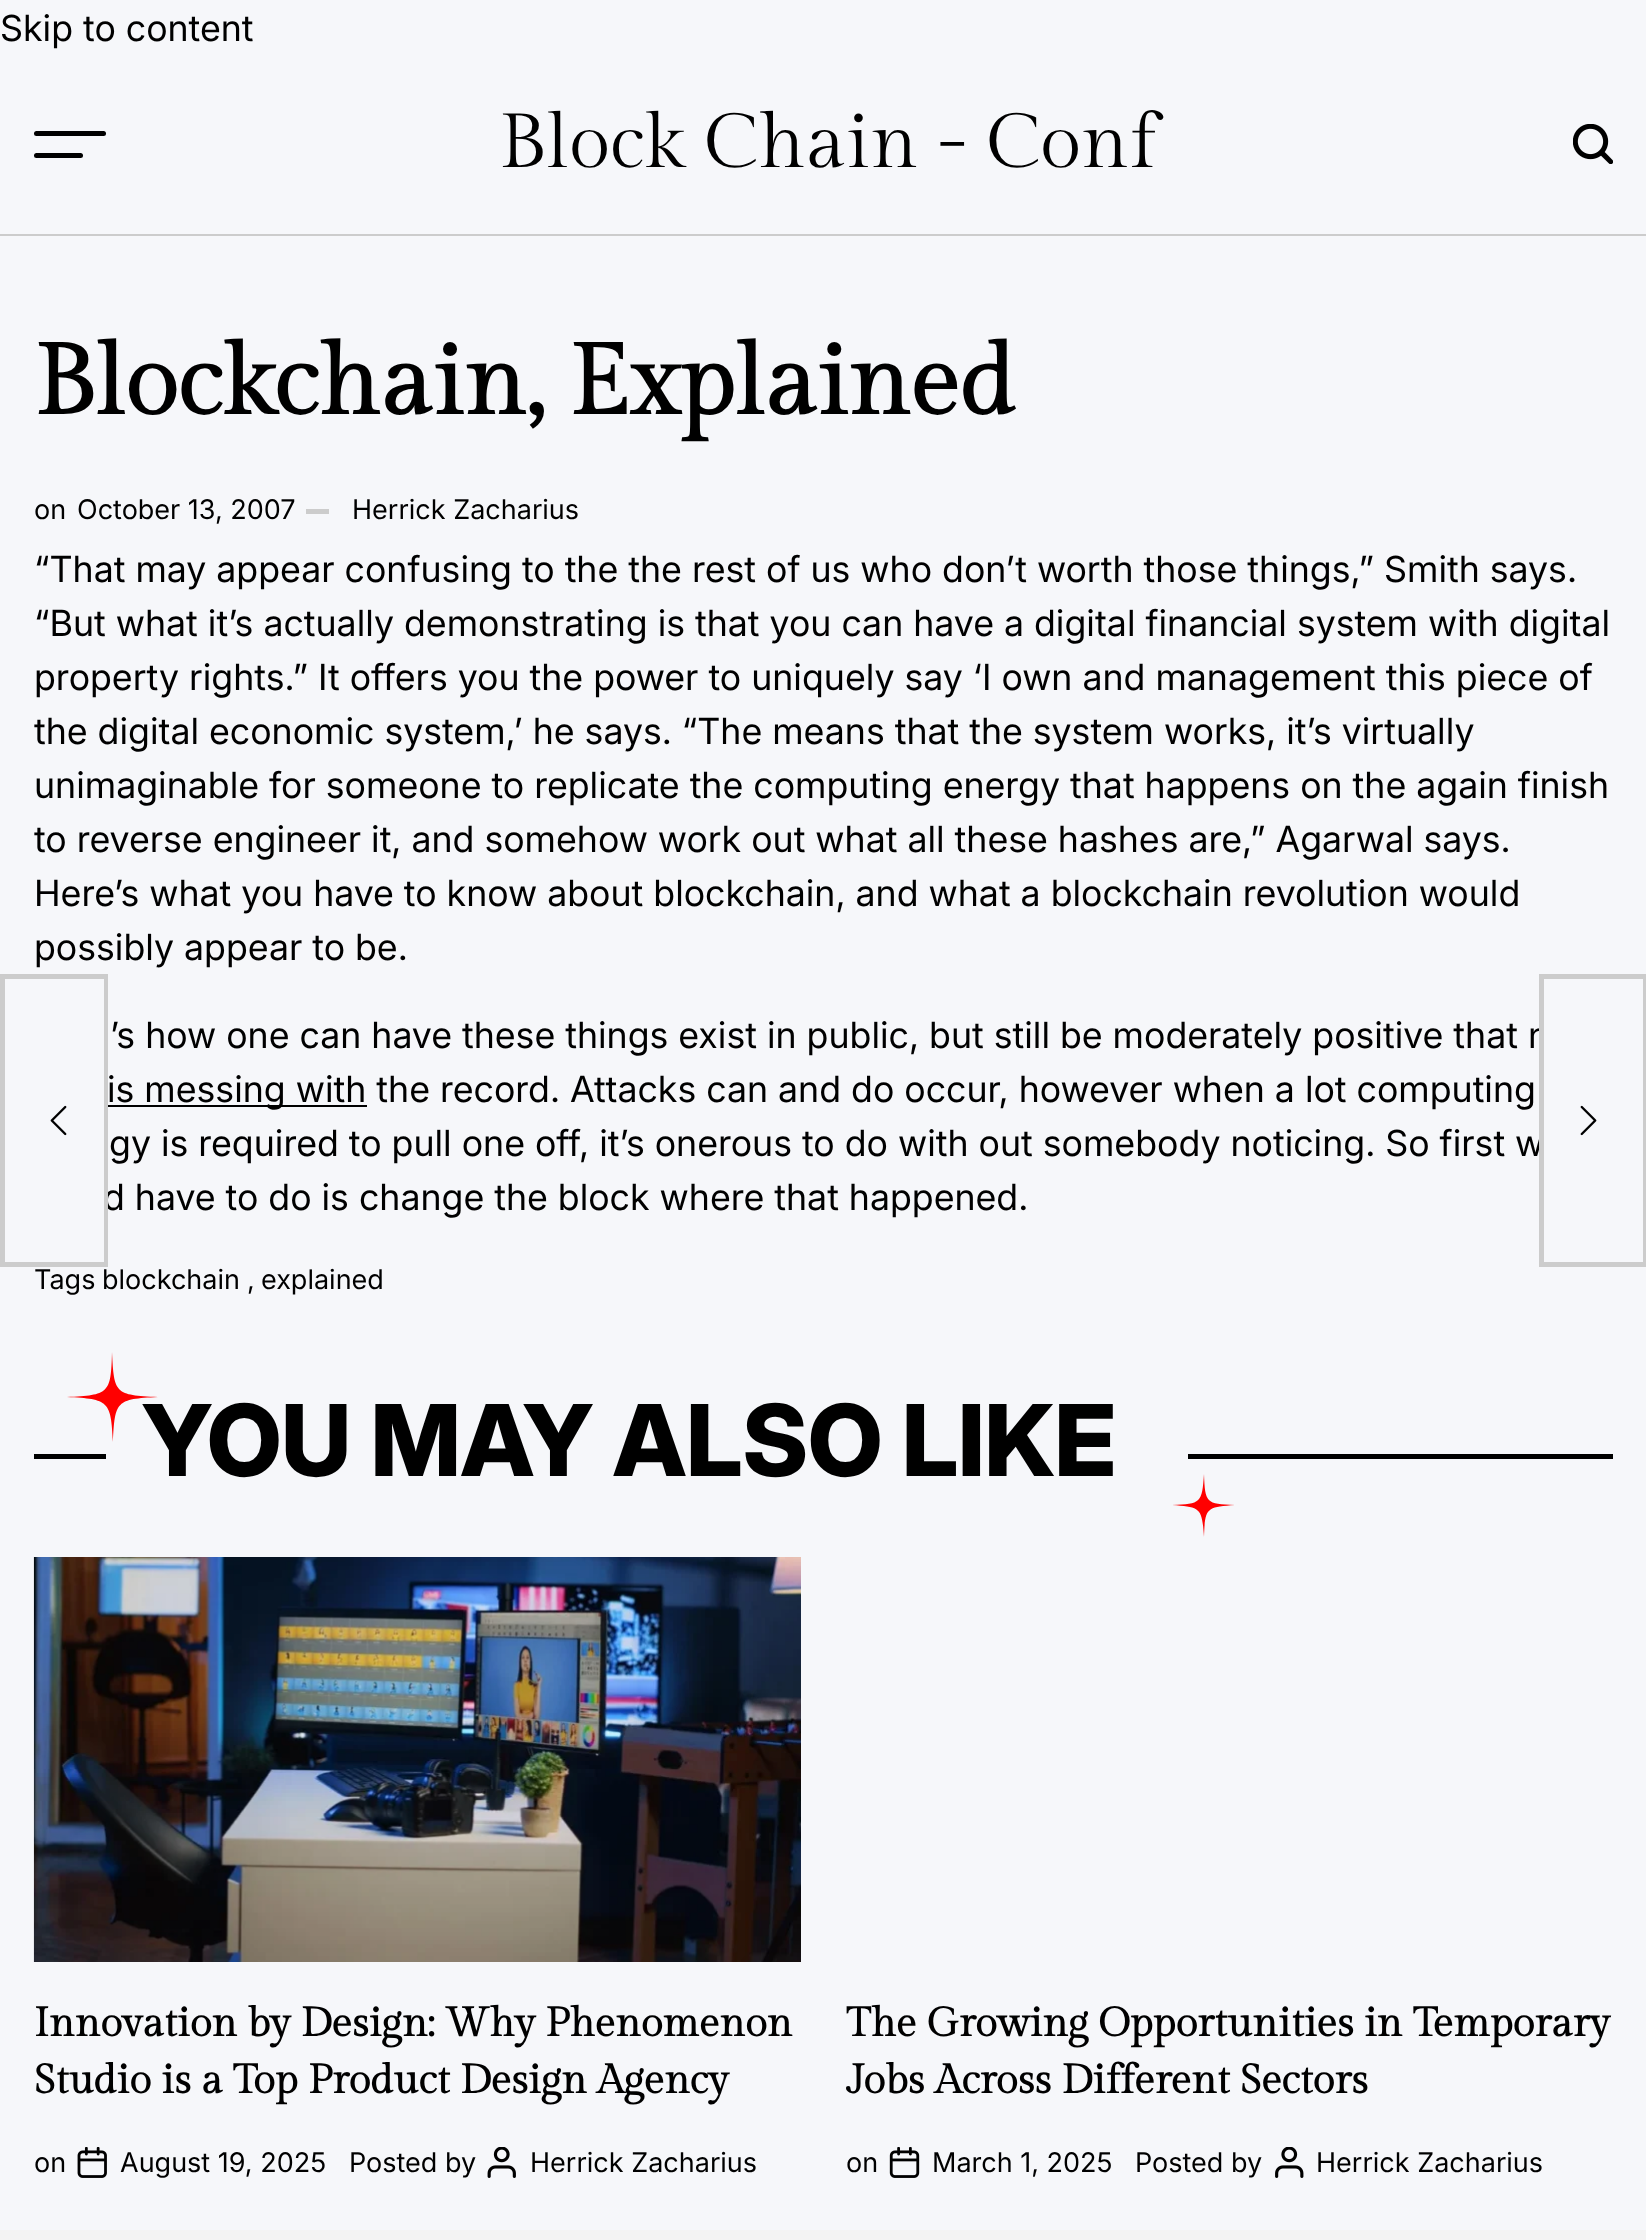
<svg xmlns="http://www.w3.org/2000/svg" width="1646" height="2240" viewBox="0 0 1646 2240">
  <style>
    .t1 { font: 36px Inter; fill: #000; }
    .t2 { font: 76.5px Gilda Display; fill: #000; }
    .t3 { font: bold 99px Gilda Display; fill: #000; }
    .t4 { font: 27px 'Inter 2'; fill: #000; }
    .t5 { font: 800 99px Inter; fill: #000; }
    .t6 { font: bold 40.75px Gilda Display; fill: #000; }
  </style>
  <rect width="100%" height="100%" fill="#f6f7fa"/>
  <text x="0" y="41" class="t1">Skip to content</text>
  <rect x="0" y="234" width="1646" height="2" fill="#ccc"/>
  <rect x="34" y="131" width="72" height="5" rx="2.5" fill="#000"/>
  <rect x="34" y="153" width="49" height="5" rx="2.5" fill="#000"/>
  <text x="499" y="167" class="t2">Block Chain - Conf</text>
  <image x="1573" y="124" width="40" height="40" href="images/1.png"/>
  <text x="34" y="414" class="t3">Blockchain, Explained</text>
  <text x="34" y="519" class="t4">on</text>
  <text x="77" y="519" class="t4">October 13, 2007</text>
  <rect x="306" y="509" width="23" height="5" fill="#ccc"/>
  <text x="352" y="519" class="t4">Herrick Zacharius</text>
  <text x="34" y="582" class="t1">“That may appear confusing to the the rest of us who don’t worth those things,” Smith says.</text>
  <text x="34" y="636" class="t1">“But what it’s actually demonstrating is that you can have a digital financial system with digital</text>
  <text x="34" y="690" class="t1">property rights.” It offers you the power to uniquely say ‘I own and management this piece of</text>
  <text x="34" y="744" class="t1">the digital economic system,’ he says. “The means that the system works, it’s virtually</text>
  <text x="34" y="798" class="t1">unimaginable for someone to replicate the computing energy that happens on the again finish</text>
  <text x="34" y="852" class="t1">to reverse engineer it, and somehow work out what all these hashes are,” Agarwal says.</text>
  <text x="34" y="906" class="t1">Here’s what you have to know about blockchain, and what a blockchain revolution would</text>
  <text x="34" y="960" class="t1">possibly appear to be.</text>
  <text x="110" y="1048" class="t1">’s how one can have these things exist in public, but still be moderately positive that n</text>
  <rect x="108" y="1105" width="259" height="2" fill="#000"/>
  <text x="107" y="1102" class="t1">is messing with the record. Attacks can and do occur, however when a lot computing</text>
  <text x="109" y="1156" class="t1">gy is required to pull one off, it’s onerous to do with out somebody noticing. So first w</text>
  <text x="103" y="1210" class="t1">d have to do is change the block where that happened.</text>
  <text x="34" y="1289" class="t4">Tags</text>
  <text x="102" y="1289" class="t4">blockchain</text>
  <text x="247" y="1289" class="t4">,</text>
  <text x="261" y="1289" class="t4">explained</text>
  <rect x="2.5" y="976.5" width="103" height="288" fill="none" stroke="#ccc" stroke-width="5"/>
  <rect x="103" y="979" width="1" height="283" fill="#f6f7fa"/>
  <image x="50" y="1105" width="17" height="31" href="images/2.png"/>
  <rect x="1541.5" y="976.5" width="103" height="288" fill="none" stroke="#ccc" stroke-width="5"/>
  <rect x="1544" y="979" width="99" height="283" fill="#f6f7fa"/>
  <image x="1580" y="1105" width="17" height="31" href="images/3.png"/>
  <rect x="34" y="1454" width="1579" height="5" fill="#000"/>
  <rect x="106" y="1454" width="1082" height="5" fill="#f6f7fa"/>
  <text x="142" y="1476" class="t5">YOU MAY ALSO LIKE</text>
  <path d="M158 1397C116 1399 115 1401 113 1442C111 1401 109 1399 67 1397C109 1395 111 1394 112 1352C114 1394 115 1395 158 1397Z" fill="#f00"/>
  <path d="M1235 1505C1206 1507 1205 1508 1204 1537C1202 1508 1201 1507 1172 1505C1201 1504 1202 1503 1204 1474C1205 1503 1206 1504 1235 1505Z" fill="#f00"/>
  <image x="33" y="1557" width="768" height="405" href="images/4.png"/>
  <text x="34" y="2036" class="t6">Innovation by Design: Why Phenomenon</text>
  <text x="34" y="2093" class="t6">Studio is a Top Product Design Agency</text>
  <text x="34" y="2172" class="t4">on</text>
  <image x="77" y="2147" width="30" height="31" href="images/5.png"/>
  <text x="120" y="2172" class="t4">August 19, 2025</text>
  <text x="349" y="2172" class="t4">Posted by</text>
  <image x="487" y="2147" width="29" height="31" href="images/6.png"/>
  <text x="530" y="2172" class="t4">Herrick Zacharius</text>
  <text x="846" y="2036" class="t6">The Growing Opportunities in Temporary</text>
  <text x="846" y="2093" class="t6">Jobs Across Different Sectors</text>
  <text x="846" y="2172" class="t4">on</text>
  <image x="889" y="2147" width="31" height="31" href="images/7.png"/>
  <text x="932" y="2172" class="t4">March 1, 2025</text>
  <text x="1135" y="2172" class="t4">Posted by</text>
  <image x="1275" y="2147" width="29" height="31" href="images/8.png"/>
  <text x="1316" y="2172" class="t4">Herrick Zacharius</text>
  <rect x="0" y="2230" width="1646" height="10" fill="#f3f3f3"/>
</svg>
